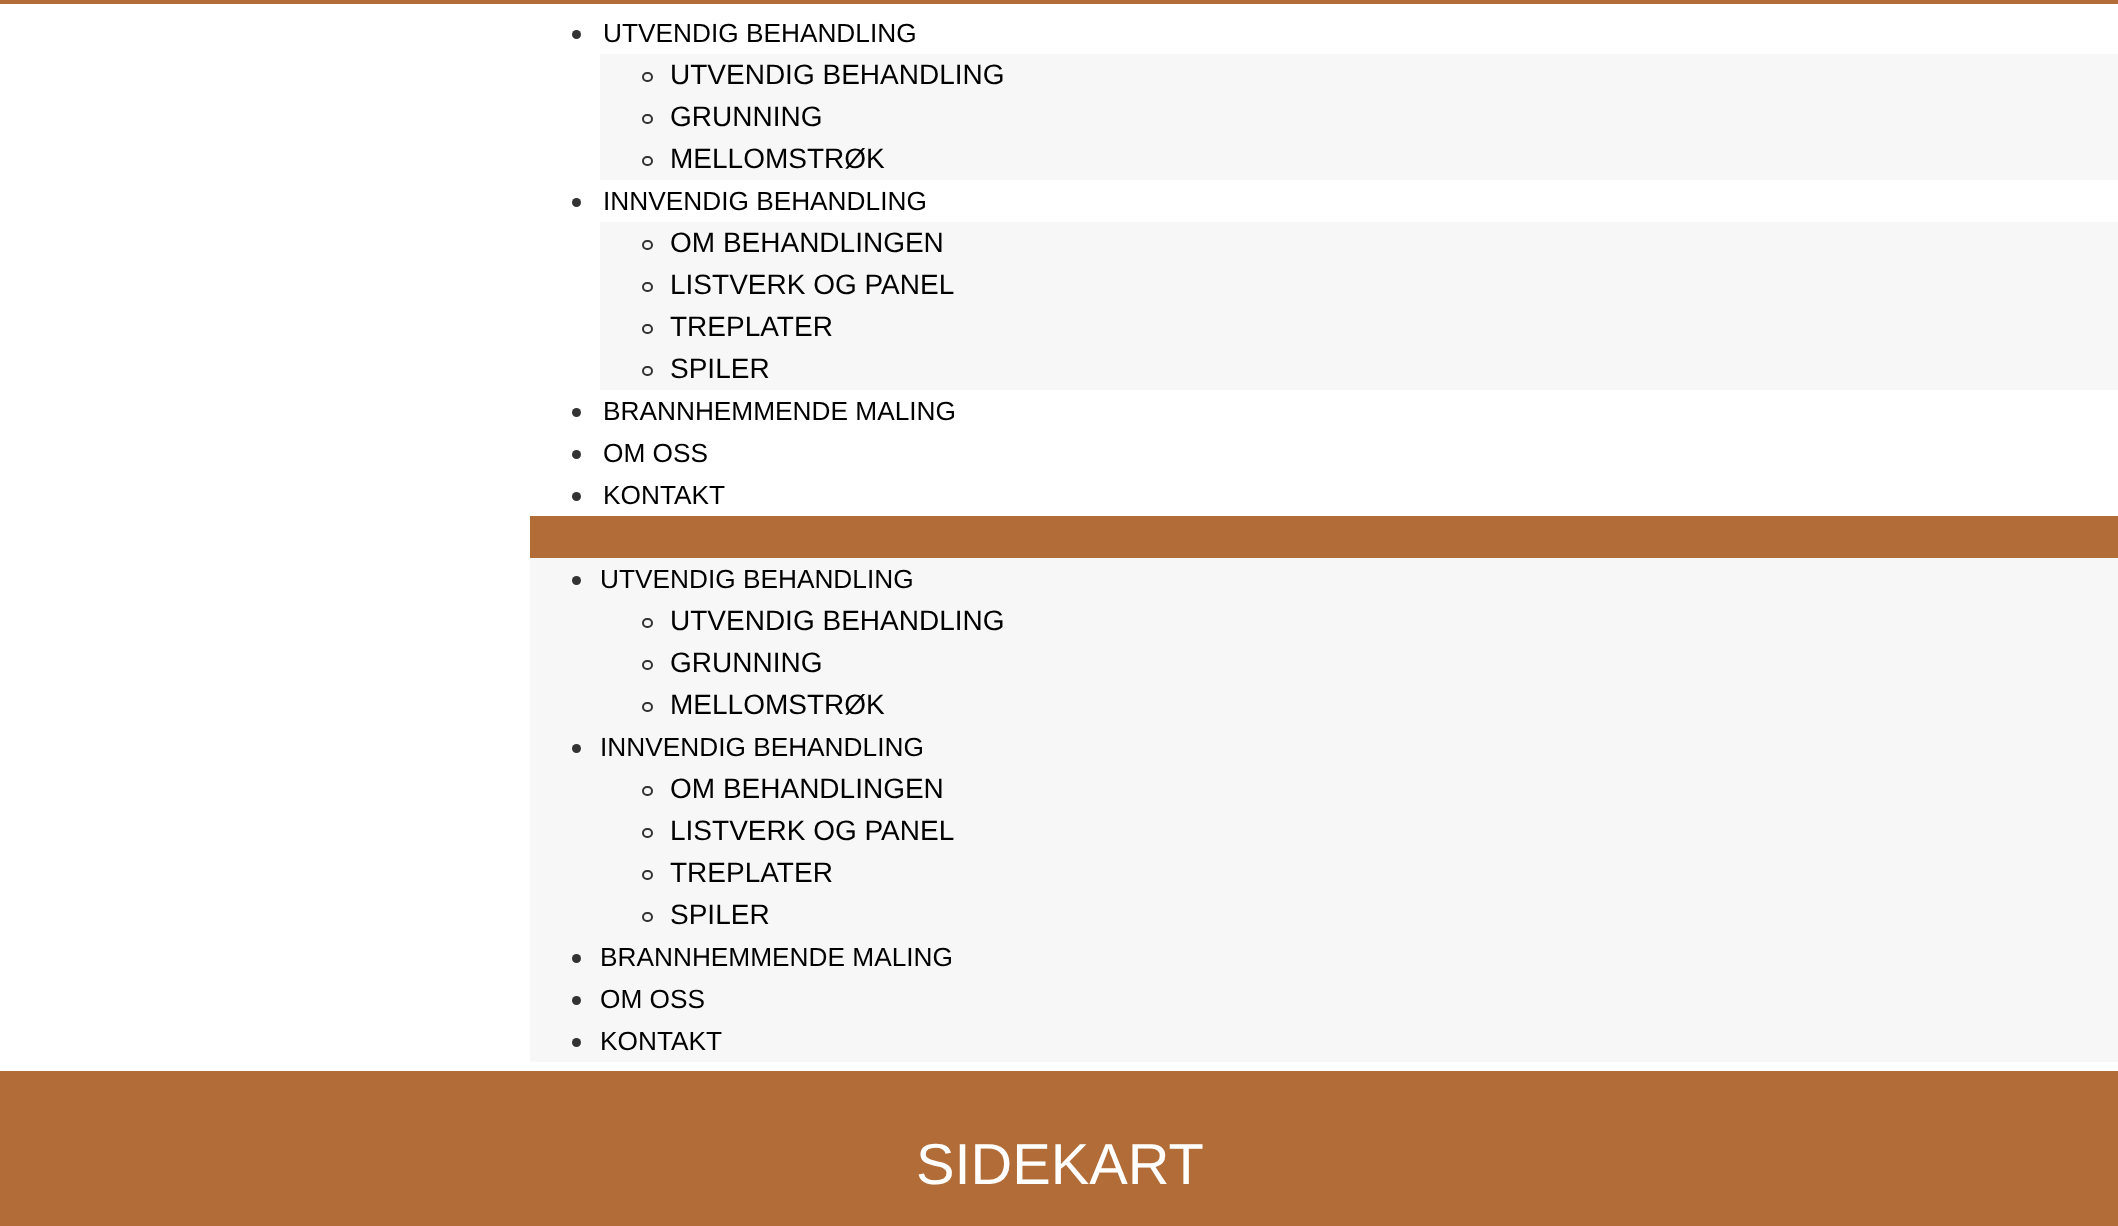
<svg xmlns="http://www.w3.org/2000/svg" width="2118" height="1226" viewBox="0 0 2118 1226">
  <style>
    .t1 { font: 26.25px Liberation Sans; fill: #000; }
    .t2 { font: 28px Liberation Sans; fill: #000; }
    .t3 { font: 57.75px Liberation Sans; fill: #fff; }
  </style>
  <rect width="100%" height="100%" fill="#fff"/>
  <rect x="0" y="0" width="2118" height="4" fill="#b26c37"/>
  <circle cx="576.5" cy="34.5" r="4.5" fill="#333"/>
  <text x="603" y="42" class="t1">UTVENDIG BEHANDLING</text>
  <rect x="600" y="54" width="1518" height="126" fill="#f7f7f7"/>
  <rect x="643" y="73" width="9" height="8" rx="4" fill="none" stroke="#333" stroke-width="2"/>
  <text x="670" y="84" class="t2">UTVENDIG BEHANDLING</text>
  <rect x="643" y="115" width="9" height="8" rx="4" fill="none" stroke="#333" stroke-width="2"/>
  <text x="670" y="126" class="t2">GRUNNING</text>
  <rect x="643" y="157" width="9" height="8" rx="4" fill="none" stroke="#333" stroke-width="2"/>
  <text x="670" y="168" class="t2">MELLOMSTRØK</text>
  <circle cx="576.5" cy="202.5" r="4.5" fill="#333"/>
  <text x="603" y="210" class="t1">INNVENDIG BEHANDLING</text>
  <rect x="600" y="222" width="1518" height="168" fill="#f7f7f7"/>
  <rect x="643" y="241" width="9" height="8" rx="4" fill="none" stroke="#333" stroke-width="2"/>
  <text x="670" y="252" class="t2">OM BEHANDLINGEN</text>
  <rect x="643" y="283" width="9" height="8" rx="4" fill="none" stroke="#333" stroke-width="2"/>
  <text x="670" y="294" class="t2">LISTVERK OG PANEL</text>
  <rect x="643" y="325" width="9" height="8" rx="4" fill="none" stroke="#333" stroke-width="2"/>
  <text x="670" y="336" class="t2">TREPLATER</text>
  <rect x="643" y="367" width="9" height="8" rx="4" fill="none" stroke="#333" stroke-width="2"/>
  <text x="670" y="378" class="t2">SPILER</text>
  <circle cx="576.5" cy="412.5" r="4.5" fill="#333"/>
  <text x="603" y="420" class="t1">BRANNHEMMENDE MALING</text>
  <circle cx="576.5" cy="454.5" r="4.5" fill="#333"/>
  <text x="603" y="462" class="t1">OM OSS</text>
  <circle cx="576.5" cy="496.5" r="4.5" fill="#333"/>
  <text x="603" y="504" class="t1">KONTAKT</text>
  <rect x="530" y="516" width="1588" height="42" fill="#b26c37"/>
  <rect x="530" y="558" width="1588" height="504" fill="#f7f7f7"/>
  <circle cx="576.5" cy="580.5" r="4.5" fill="#333"/>
  <text x="600" y="588" class="t1">UTVENDIG BEHANDLING</text>
  <rect x="643" y="619" width="9" height="8" rx="4" fill="none" stroke="#333" stroke-width="2"/>
  <text x="670" y="630" class="t2">UTVENDIG BEHANDLING</text>
  <rect x="643" y="661" width="9" height="8" rx="4" fill="none" stroke="#333" stroke-width="2"/>
  <text x="670" y="672" class="t2">GRUNNING</text>
  <rect x="643" y="703" width="9" height="8" rx="4" fill="none" stroke="#333" stroke-width="2"/>
  <text x="670" y="714" class="t2">MELLOMSTRØK</text>
  <circle cx="576.5" cy="748.5" r="4.5" fill="#333"/>
  <text x="600" y="756" class="t1">INNVENDIG BEHANDLING</text>
  <rect x="643" y="787" width="9" height="8" rx="4" fill="none" stroke="#333" stroke-width="2"/>
  <text x="670" y="798" class="t2">OM BEHANDLINGEN</text>
  <rect x="643" y="829" width="9" height="8" rx="4" fill="none" stroke="#333" stroke-width="2"/>
  <text x="670" y="840" class="t2">LISTVERK OG PANEL</text>
  <rect x="643" y="871" width="9" height="8" rx="4" fill="none" stroke="#333" stroke-width="2"/>
  <text x="670" y="882" class="t2">TREPLATER</text>
  <rect x="643" y="913" width="9" height="8" rx="4" fill="none" stroke="#333" stroke-width="2"/>
  <text x="670" y="924" class="t2">SPILER</text>
  <circle cx="576.5" cy="958.5" r="4.5" fill="#333"/>
  <text x="600" y="966" class="t1">BRANNHEMMENDE MALING</text>
  <circle cx="576.5" cy="1000.5" r="4.5" fill="#333"/>
  <text x="600" y="1008" class="t1">OM OSS</text>
  <circle cx="576.5" cy="1042.5" r="4.5" fill="#333"/>
  <text x="600" y="1050" class="t1">KONTAKT</text>
  <rect x="0" y="1071" width="2118" height="155" fill="#b26c37"/>
  <text x="916" y="1184" class="t3">SIDEKART</text>
</svg>
